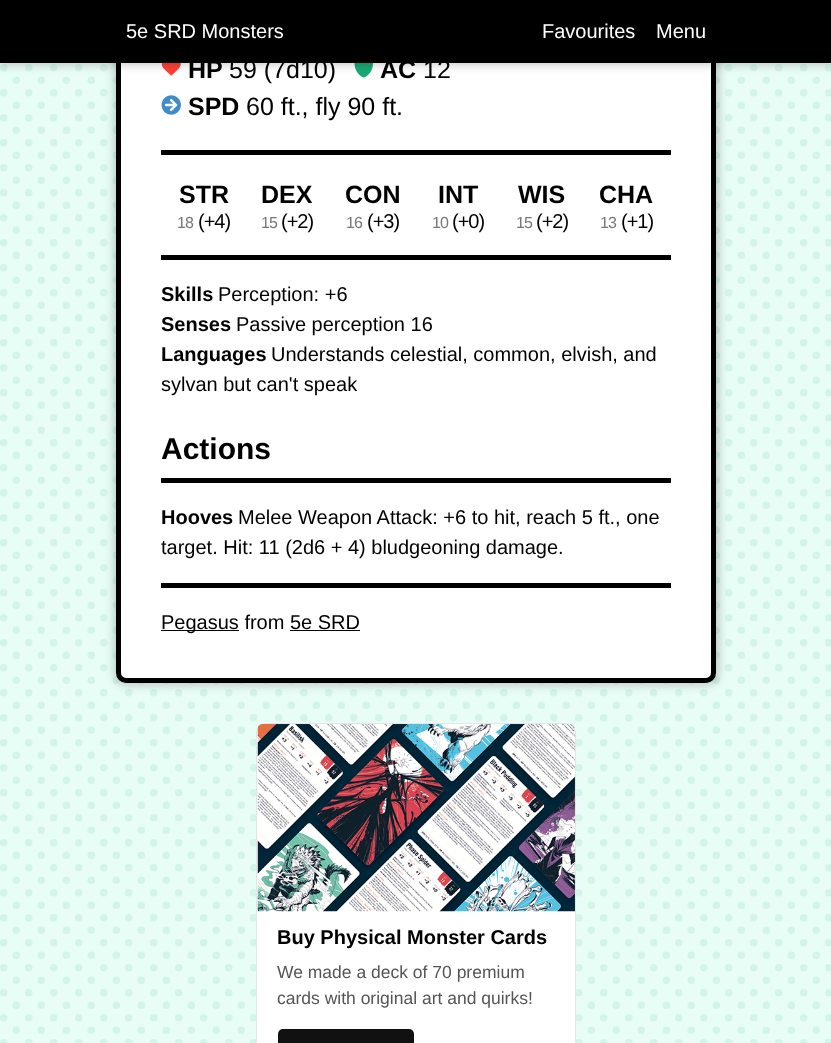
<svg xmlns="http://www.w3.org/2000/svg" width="831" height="1043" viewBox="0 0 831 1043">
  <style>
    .t1 { font: 20px Liberation Sans; fill: #fff; }
    .t2 { font: bold 25px Liberation Sans; fill: #000; }
    .t3 { font: 25px Liberation Sans; fill: #000; }
    .t4 { font: 16px Liberation Sans; letter-spacing: -1px; fill: #777; }
    .t5 { font: 20px Liberation Sans; letter-spacing: -1px; fill: #000; }
    .t6 { font: bold 20px Liberation Sans; fill: #000; }
    .t7 { font: 20px Liberation Sans; fill: #000; }
    .t8 { font: bold 30px Liberation Sans; fill: #000; }
    .t9 { font: 17.5px Liberation Sans; fill: #555; }
  </style>
  <rect width="100%" height="100%" fill="#e8fdf5"/>
  <image x="0" y="64" width="831" height="979" href="images/1.png"/>
  <rect x="114" y="-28" width="605" height="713" rx="13" fill="#00000033" filter="blur(5px)"/>
  <rect x="118.5" y="-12.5" width="595" height="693" rx="7.5" fill="#fff" stroke="#000" stroke-width="5"/>
  <image x="161" y="63" width="20" height="13" href="images/2.png"/>
  <image x="354" y="63" width="20" height="15" href="images/3.png"/>
  <rect x="-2" y="-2" width="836" height="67" fill="#00000033" filter="blur(5px)"/>
  <rect x="0" y="0" width="831" height="63" fill="#000"/>
  <text x="126" y="38" class="t1">5e SRD Monsters</text>
  <text x="542" y="38" class="t1">Favourites</text>
  <text x="656" y="38" class="t1">Menu</text>
  <text x="188" y="78" class="t2">HP</text>
  <text x="229" y="78" class="t3">59 (7d10)</text>
  <text x="380" y="78" class="t2">AC</text>
  <text x="423" y="78" class="t3">12</text>
  <image x="161" y="95" width="20" height="20" href="images/4.png"/>
  <text x="188" y="115" class="t2">SPD</text>
  <text x="246" y="115" class="t3">60 ft., fly 90 ft.</text>
  <rect x="161" y="150" width="510" height="5" fill="#000"/>
  <text x="179" y="203" class="t2">STR</text>
  <text x="261" y="203" class="t2">DEX</text>
  <text x="345" y="203" class="t2">CON</text>
  <text x="438" y="203" class="t2">INT</text>
  <text x="518" y="203" class="t2">WIS</text>
  <text x="599" y="203" class="t2">CHA</text>
  <text x="177" y="228" class="t4">18</text>
  <text x="198" y="228" class="t5">(+4)</text>
  <text x="261" y="228" class="t4">15</text>
  <text x="281" y="228" class="t5">(+2)</text>
  <text x="346" y="228" class="t4">16</text>
  <text x="367" y="228" class="t5">(+3)</text>
  <text x="432" y="228" class="t4">10</text>
  <text x="452" y="228" class="t5">(+0)</text>
  <text x="516" y="228" class="t4">15</text>
  <text x="536" y="228" class="t5">(+2)</text>
  <text x="600" y="228" class="t4">13</text>
  <text x="621" y="228" class="t5">(+1)</text>
  <rect x="161" y="255" width="510" height="5" fill="#000"/>
  <text x="161" y="301" class="t6">Skills</text>
  <text x="218" y="301" class="t7">Perception: +6</text>
  <text x="161" y="331" class="t6">Senses</text>
  <text x="236" y="331" class="t7">Passive perception 16</text>
  <text x="271" y="361" class="t7">Understands celestial, common, elvish, and</text>
  <text x="161" y="391" class="t7">sylvan but can't speak</text>
  <text x="161" y="361" class="t6">Languages</text>
  <text x="161" y="459" class="t8">Actions</text>
  <rect x="161" y="478" width="510" height="5" fill="#000"/>
  <text x="238" y="524" class="t7">Melee Weapon Attack: +6 to hit, reach 5 ft., one</text>
  <text x="161" y="554" class="t7">target. Hit: 11 (2d6 + 4) bludgeoning damage.</text>
  <text x="161" y="524" class="t6">Hooves</text>
  <rect x="161" y="583" width="510" height="5" fill="#000"/>
  <rect x="161" y="630" width="78" height="1" fill="#000"/>
  <text x="161" y="629" class="t7">Pegasus from 5e SRD</text>
  <rect x="290" y="630" width="70" height="1" fill="#000"/>
  <rect x="256" y="723" width="320" height="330" rx="10" fill="#fff"/>
  <rect x="256.5" y="723.5" width="319" height="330" rx="9.5" fill="none" stroke="#0000001a"/>
  <image x="257" y="724" width="318" height="188" href="images/5.png"/>
  <text x="277" y="944" class="t6">Buy Physical Monster Cards</text>
  <text x="277" y="978" class="t9">We made a deck of 70 premium</text>
  <text x="277" y="1004" class="t9">cards with original art and quirks!</text>
  <rect x="278" y="1029" width="136" height="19" rx="5" fill="#111"/>
</svg>
